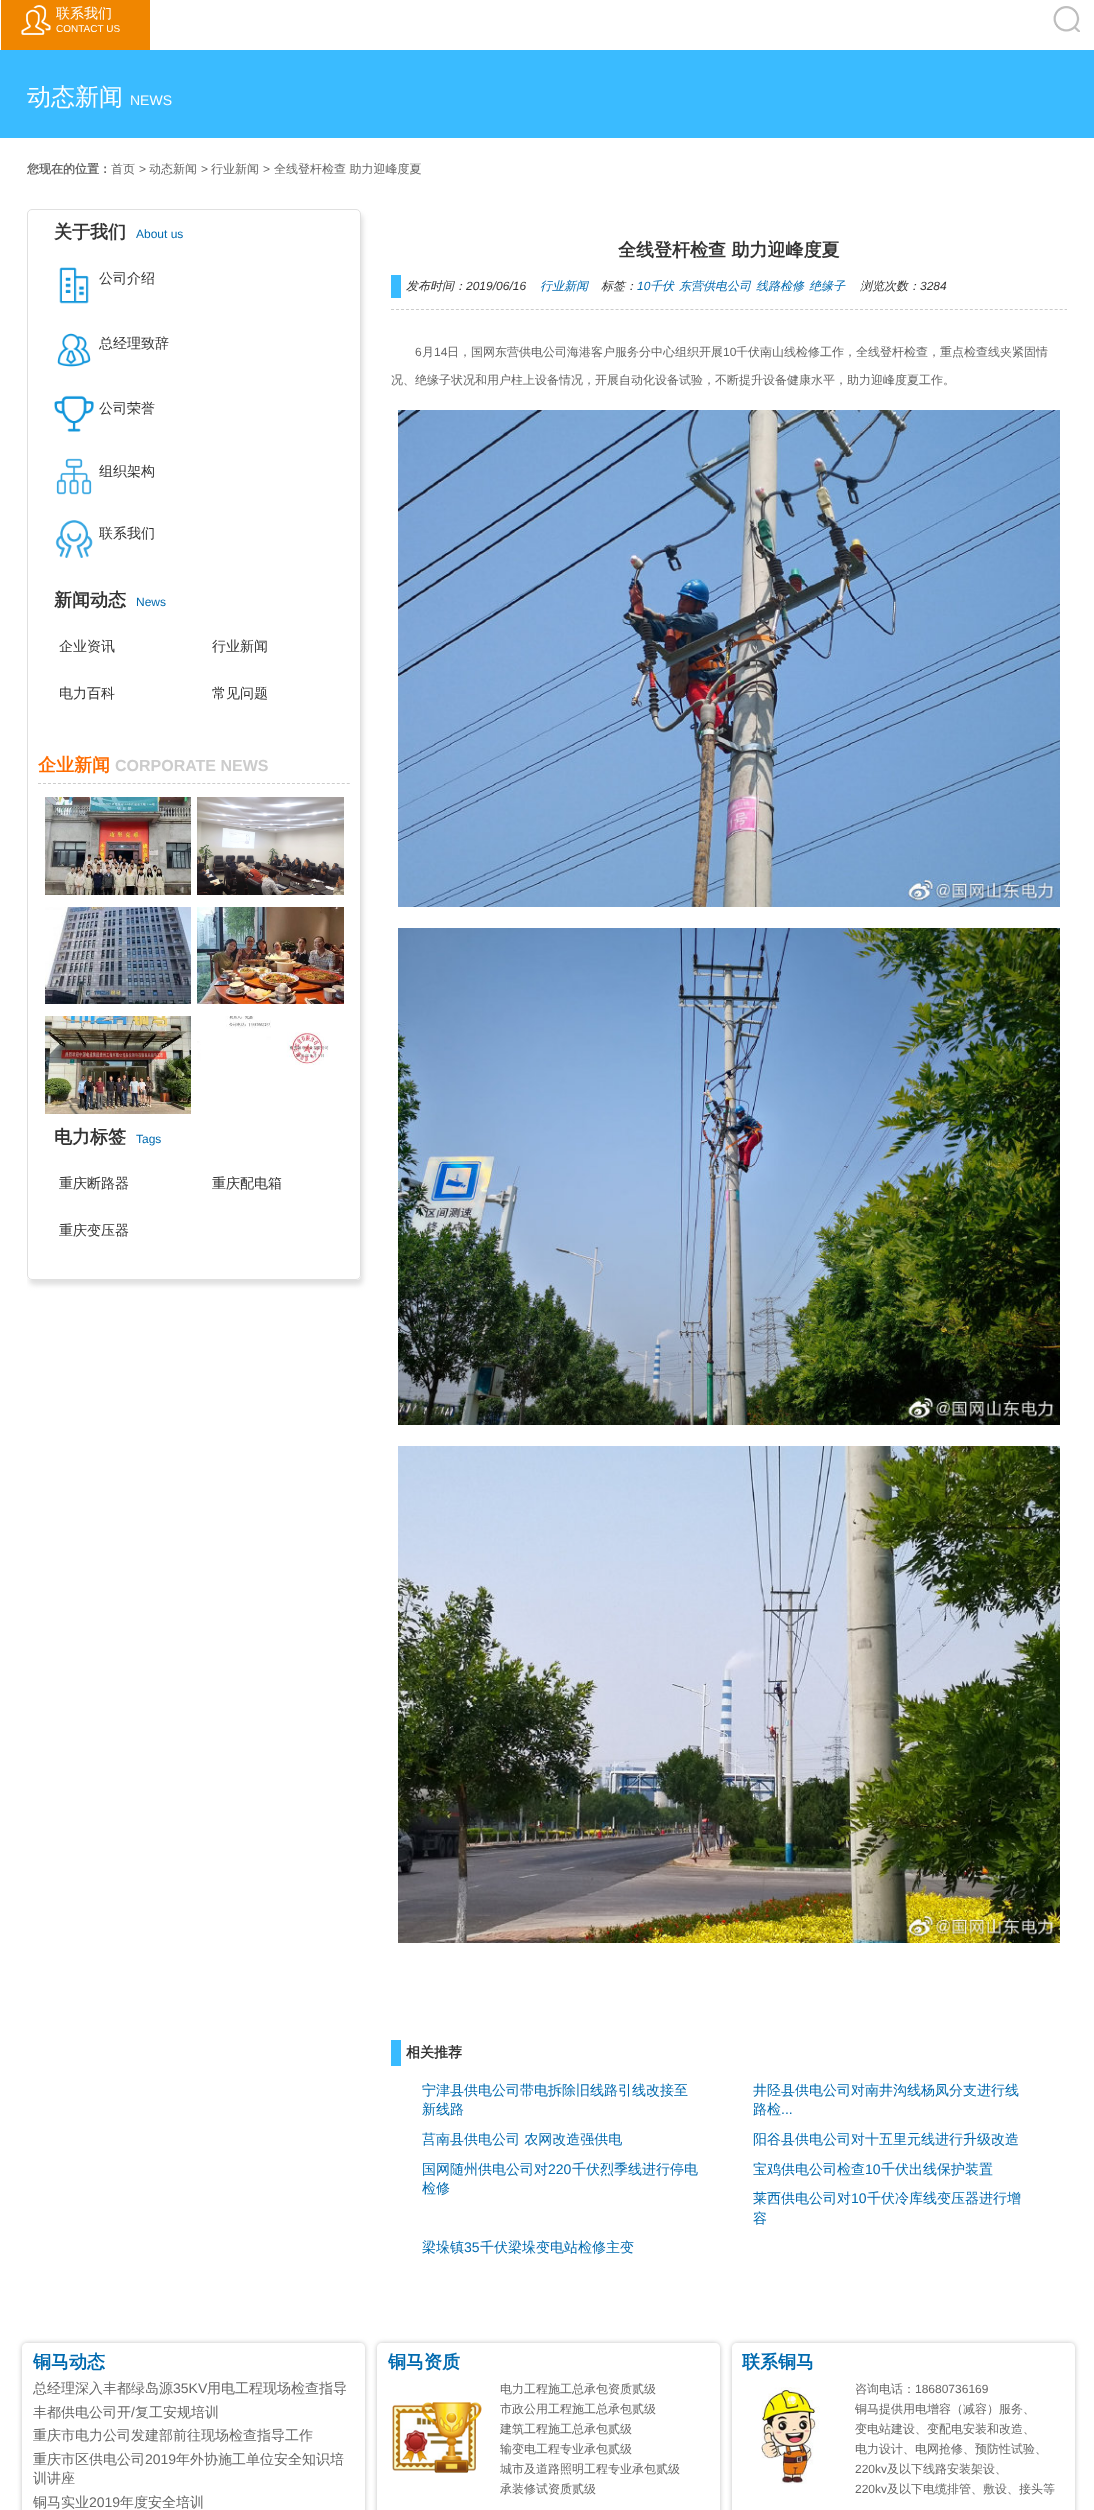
<svg xmlns="http://www.w3.org/2000/svg" width="1094" height="2510" viewBox="0 0 1094 2510">
  <style>
    .t1 { font: 500 14px WenQuanYi Zen Hei; fill: #fff; }
    .t2 { font: 10px Liberation Sans; fill: #fff; }
    .t3 { font: 500 24px WenQuanYi Zen Hei; fill: #fff; }
    .t4 { font: 14px Liberation Sans; fill: #fff; }
    .t5 { font: bold 12px WenQuanYi Zen Hei; fill: #666; }
    .t6 { font: 500 12px WenQuanYi Zen Hei; fill: #666; }
    .t7 { font: 12px Liberation Sans; fill: #666; }
    .t8 { font: bold 18px WenQuanYi Zen Hei; fill: #333; }
    .t9 { font: 12px Liberation Sans; fill: #006aaf; }
    .t10 { font: 500 14px WenQuanYi Zen Hei; fill: #333; }
    .t11 { font: bold 18px WenQuanYi Zen Hei; fill: #ff6c00; }
    .t12 { font: bold 16px Liberation Sans; fill: #ccc; }
    .t13 { font: italic 500 12px WenQuanYi Zen Hei; fill: #333; }
    .t14 { font: italic 12px Liberation Sans; fill: #333; }
    .t15 { font: italic 500 12px WenQuanYi Zen Hei; fill: #006aaf; }
    .t16 { font: italic 12px Liberation Sans; fill: #006aaf; }
    .t17 { font: bold 14px WenQuanYi Zen Hei; fill: #333; }
    .t18 { font: 500 14px WenQuanYi Zen Hei; fill: #006aaf; }
    .t19 { font: 14px Liberation Sans; fill: #006aaf; }
    .t20 { font: bold 18px WenQuanYi Zen Hei; fill: #006aaf; }
    .t21 { font: 500 14px WenQuanYi Zen Hei; fill: #666; }
    .t22 { font: 14px Liberation Sans; fill: #666; }
  </style>
  <defs>
    <clipPath id="clip1"><rect x="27" y="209" width="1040" height="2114"/></clipPath>
    <clipPath id="clip2"><path d="M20 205H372V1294H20ZM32 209H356C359 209 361 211 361 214V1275C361 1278 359 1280 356 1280H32C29 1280 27 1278 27 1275V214C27 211 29 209 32 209Z" clip-rule="evenodd"/></clipPath>
    <clipPath id="clip3"><path d="M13 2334H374V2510H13ZM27 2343H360C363 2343 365 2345 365 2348V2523C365 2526 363 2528 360 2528H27C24 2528 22 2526 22 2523V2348C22 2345 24 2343 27 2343Z" clip-rule="evenodd"/></clipPath>
    <clipPath id="clip4"><path d="M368 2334H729V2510H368ZM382 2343H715C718 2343 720 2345 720 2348V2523C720 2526 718 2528 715 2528H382C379 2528 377 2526 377 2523V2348C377 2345 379 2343 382 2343Z" clip-rule="evenodd"/></clipPath>
    <clipPath id="clip5"><path d="M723 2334H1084V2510H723ZM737 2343H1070C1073 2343 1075 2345 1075 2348V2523C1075 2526 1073 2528 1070 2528H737C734 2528 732 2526 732 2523V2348C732 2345 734 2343 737 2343Z" clip-rule="evenodd"/></clipPath>
  </defs>
  <rect width="100%" height="100%" fill="#fff"/>
  <rect x="1" y="0" width="149" height="50" fill="#f08600"/>
  <image x="21" y="5" width="30" height="30" href="images/1.png"/>
  <text x="56" y="18" class="t1">联系我们</text>
  <text x="56" y="32" class="t2">CONTACT US</text>
  <image x="1053" y="6" width="27" height="26" href="images/2.png"/>
  <rect x="0" y="50" width="1094" height="88" fill="#3abbff"/>
  <text x="27" y="105" class="t3">动态新闻</text>
  <text x="130" y="105" class="t4">NEWS</text>
  <text x="27" y="173" class="t5">您现在的位置：</text>
  <text x="111" y="173" class="t6">首页</text>
  <text x="139" y="173" class="t7">&gt;</text>
  <text x="149" y="173" class="t6">动态新闻</text>
  <text x="201" y="173" class="t7">&gt;</text>
  <text x="211" y="173" class="t6">行业新闻</text>
  <text x="263" y="173" class="t7">&gt;</text>
  <text x="274" y="173" class="t6">全线登杆检查 助力迎峰度夏</text>
  <g clip-path="url(#clip1)">
    <g clip-path="url(#clip2)">
      <rect x="29" y="214" width="334" height="1071" rx="5" fill="#e0e0e0" filter="blur(2.5px)"/>
    </g>
  </g>
  <rect x="27.5" y="209.5" width="333" height="1070" rx="4.5" fill="none" stroke="#e0e0e0"/>
  <text x="54" y="238" class="t8">关于我们</text>
  <text x="136" y="238" class="t9">About us</text>
  <image x="59" y="267" width="30" height="37" href="images/3.png"/>
  <text x="99" y="283" class="t10">公司介绍</text>
  <image x="57" y="333" width="34" height="34" href="images/4.png"/>
  <text x="99" y="348" class="t10">总经理致辞</text>
  <image x="54" y="395" width="40" height="37" href="images/5.png"/>
  <text x="99" y="413" class="t10">公司荣誉</text>
  <image x="56" y="458" width="36" height="37" href="images/6.png"/>
  <text x="99" y="476" class="t10">组织架构</text>
  <image x="55" y="520" width="38" height="38" href="images/7.png"/>
  <text x="99" y="538" class="t10">联系我们</text>
  <text x="54" y="606" class="t8">新闻动态</text>
  <text x="136" y="606" class="t9">News</text>
  <text x="59" y="651" class="t10">企业资讯</text>
  <text x="212" y="651" class="t10">行业新闻</text>
  <text x="59" y="698" class="t10">电力百科</text>
  <text x="212" y="698" class="t10">常见问题</text>
  <path d="M38 783.5H350" fill="none" stroke="#ccc" stroke-dasharray="3 1.98"/>
  <text x="38" y="771" class="t11">企业新闻</text>
  <text x="115" y="771" class="t12">CORPORATE NEWS</text>
  <image x="45" y="797" width="146" height="98" href="images/8.png"/>
  <image x="197" y="797" width="147" height="98" href="images/9.png"/>
  <image x="45" y="907" width="146" height="97" href="images/10.png"/>
  <image x="197" y="907" width="147" height="97" href="images/11.png"/>
  <image x="45" y="1016" width="146" height="98" href="images/12.png"/>
  <image x="197" y="1016" width="132" height="49" href="images/13.png"/>
  <text x="54" y="1143" class="t8">电力标签</text>
  <text x="136" y="1143" class="t9">Tags</text>
  <text x="59" y="1188" class="t10">重庆断路器</text>
  <text x="212" y="1188" class="t10">重庆配电箱</text>
  <text x="59" y="1235" class="t10">重庆变压器</text>
  <text x="618" y="256" class="t8">全线登杆检查 助力迎峰度夏</text>
  <path d="M391 309.5H1067" fill="none" stroke="#ccc" stroke-dasharray="3 1.99"/>
  <rect x="391" y="275" width="10" height="23" fill="#39bbff"/>
  <text x="406" y="290" class="t13">发布时间：</text>
  <text x="466" y="290" class="t14">2019/06/16</text>
  <text x="540" y="290" class="t15">行业新闻</text>
  <text x="601" y="290" class="t13">标签：</text>
  <text x="637" y="290" class="t16">10</text>
  <text x="650" y="290" class="t15">千伏</text>
  <text x="679" y="290" class="t15">东营供电公司</text>
  <text x="756" y="290" class="t15">线路检修</text>
  <text x="809" y="290" class="t15">绝缘子</text>
  <text x="860" y="290" class="t13">浏览次数：</text>
  <text x="920" y="290" class="t14">3284</text>
  <text x="415" y="356" class="t7">6</text>
  <text x="422" y="356" class="t6">月</text>
  <text x="434" y="356" class="t7">14</text>
  <text x="447" y="356" class="t6">日，国网东营供电公司海港客户服务分中心组织开展</text>
  <text x="723" y="356" class="t7">10</text>
  <text x="736" y="356" class="t6">千伏南山线检修工作，全线登杆检查，重点检查线夹紧固情</text>
  <text x="391" y="384" class="t6">况、绝缘子状况和用户柱上设备情况，开展自动化设备试验，不断提升设备健康水平，助力迎峰度夏工作。</text>
  <image x="398" y="410" width="662" height="497" href="images/14.png"/>
  <image x="398" y="928" width="662" height="497" href="images/15.png"/>
  <image x="398" y="1446" width="662" height="497" href="images/16.png"/>
  <rect x="391" y="2040" width="10" height="26" fill="#39bbff"/>
  <text x="406" y="2057" class="t17">相关推荐</text>
  <text x="422" y="2095" class="t18">宁津县供电公司带电拆除旧线路引线改接至</text>
  <text x="422" y="2114" class="t18">新线路</text>
  <text x="753" y="2095" class="t18">井陉县供电公司对南井沟线杨凤分支进行线</text>
  <text x="753" y="2114" class="t18">路检</text>
  <text x="781" y="2114" class="t19">...</text>
  <text x="422" y="2144" class="t18">莒南县供电公司 农网改造强供电</text>
  <text x="753" y="2144" class="t18">阳谷县供电公司对十五里元线进行升级改造</text>
  <text x="422" y="2174" class="t18">国网随州供电公司对</text>
  <text x="548" y="2174" class="t19">220</text>
  <text x="572" y="2174" class="t18">千伏烈季线进行停电</text>
  <text x="422" y="2193" class="t18">检修</text>
  <text x="753" y="2174" class="t18">宝鸡供电公司检查</text>
  <text x="865" y="2174" class="t19">10</text>
  <text x="881" y="2174" class="t18">千伏出线保护装置</text>
  <text x="753" y="2203" class="t18">莱西供电公司对</text>
  <text x="851" y="2203" class="t19">10</text>
  <text x="867" y="2203" class="t18">千伏冷库线变压器进行增</text>
  <text x="753" y="2223" class="t18">容</text>
  <text x="422" y="2252" class="t18">梁垛镇</text>
  <text x="464" y="2252" class="t19">35</text>
  <text x="480" y="2252" class="t18">千伏梁垛变电站检修主变</text>
  <g clip-path="url(#clip3)">
    <rect x="22" y="2343" width="343" height="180" rx="5" fill="#c1c1c1" filter="blur(2.5px)"/>
  </g>
  <text x="33" y="2368" class="t20">铜马动态</text>
  <text x="33" y="2393" class="t21">总经理深入丰都绿岛源</text>
  <text x="173" y="2393" class="t22">35KV</text>
  <text x="207" y="2393" class="t21">用电工程现场检查指导</text>
  <text x="33" y="2417" class="t21">丰都供电公司开</text>
  <text x="131" y="2417" class="t22">/</text>
  <text x="135" y="2417" class="t21">复工安规培训</text>
  <text x="33" y="2440" class="t21">重庆市电力公司发建部前往现场检查指导工作</text>
  <text x="33" y="2464" class="t21">重庆市区供电公司</text>
  <text x="145" y="2464" class="t22">2019</text>
  <text x="176" y="2464" class="t21">年外协施工单位安全知识培</text>
  <text x="33" y="2483" class="t21">训讲座</text>
  <text x="33" y="2507" class="t21">铜马实业</text>
  <text x="89" y="2507" class="t22">2019</text>
  <text x="120" y="2507" class="t21">年度安全培训</text>
  <g clip-path="url(#clip4)">
    <rect x="377" y="2343" width="343" height="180" rx="5" fill="#c1c1c1" filter="blur(2.5px)"/>
  </g>
  <text x="388" y="2368" class="t20">铜马资质</text>
  <image x="392" y="2402" width="90" height="71" href="images/17.png"/>
  <text x="500" y="2393" class="t6">电力工程施工总承包资质贰级</text>
  <text x="500" y="2413" class="t6">市政公用工程施工总承包贰级</text>
  <text x="500" y="2433" class="t6">建筑工程施工总承包贰级</text>
  <text x="500" y="2453" class="t6">输变电工程专业承包贰级</text>
  <text x="500" y="2473" class="t6">城市及道路照明工程专业承包贰级</text>
  <text x="500" y="2493" class="t6">承装修试资质贰级</text>
  <g clip-path="url(#clip5)">
    <rect x="732" y="2343" width="343" height="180" rx="5" fill="#c1c1c1" filter="blur(2.5px)"/>
  </g>
  <text x="742" y="2368" class="t20">联系铜马</text>
  <image x="761" y="2387" width="59" height="97" href="images/18.png"/>
  <text x="855" y="2393" class="t6">咨询电话：</text>
  <text x="915" y="2393" class="t7">18680736169</text>
  <text x="855" y="2413" class="t6">铜马提供用电增容（减容）服务、</text>
  <text x="855" y="2433" class="t6">变电站建设、变配电安装和改造、</text>
  <text x="855" y="2453" class="t6">电力设计、电网抢修、预防性试验、</text>
  <text x="855" y="2473" class="t7">220kv</text>
  <text x="887" y="2473" class="t6">及以下线路安装架设、</text>
  <text x="855" y="2493" class="t7">220kv</text>
  <text x="887" y="2493" class="t6">及以下电缆排管、敷设、接头等</text>
</svg>
